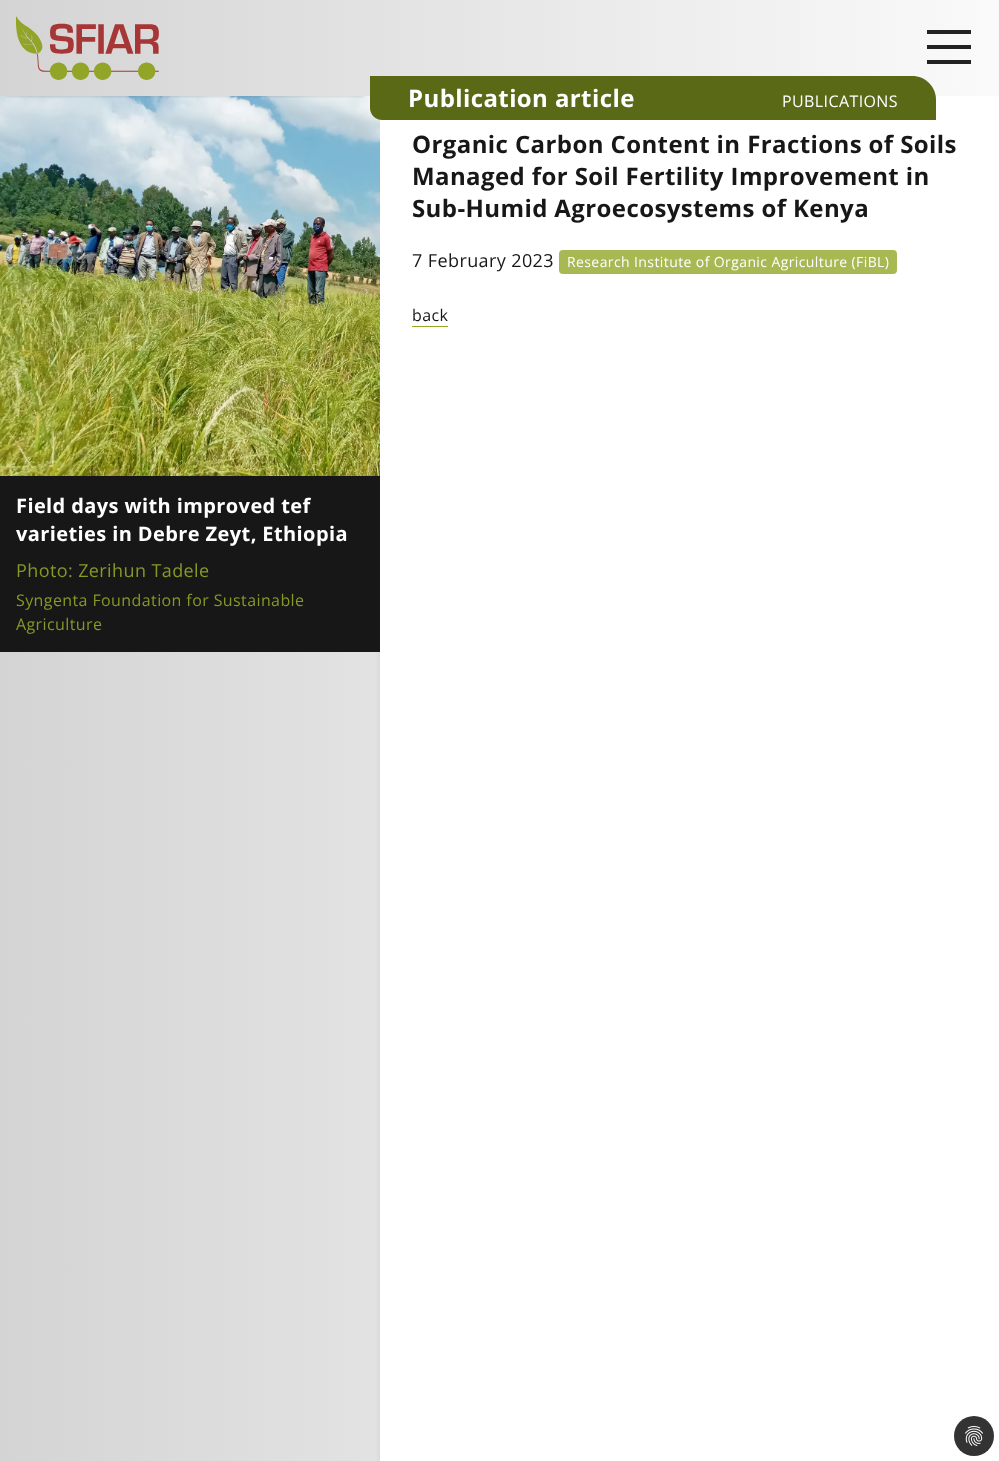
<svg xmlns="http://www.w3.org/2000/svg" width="999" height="1461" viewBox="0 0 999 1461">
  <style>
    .t1 { font: bold 24px Open Sans; letter-spacing: 0.4px; fill: #fff; }
    .t2 { font: 16px Open Sans; letter-spacing: 0.4px; fill: #fff; }
    .t3 { font: bold 24px Open Sans; letter-spacing: 0.4px; fill: #171717; }
    .t4 { font: 18px Open Sans; letter-spacing: 0.4px; fill: #171717; }
    .t5 { font: 14px Open Sans; letter-spacing: 0.4px; fill: #fff; }
    .t6 { font: 16px Open Sans; letter-spacing: 0.4px; fill: #171717; }
    .t7 { font: bold 20px Open Sans; letter-spacing: 0.4px; fill: #fff; }
    .t8 { font: 18px Open Sans; letter-spacing: 0.4px; fill: #869826; }
    .t9 { font: 16px Open Sans; letter-spacing: 0.4px; fill: #869826; }
  </style>
  <defs>
    <linearGradient id="g1" gradientUnits="userSpaceOnUse" x1="0" y1="731" x2="999" y2="731"><stop offset="0" stop-color="#d4d4d4"/><stop offset="1" stop-color="#fafafa"/></linearGradient>
    <clipPath id="clip1"><rect x="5" y="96" width="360" height="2"/></clipPath>
  </defs>
  <rect width="100%" height="100%" fill="#fff"/>
  <rect x="0" y="0" width="999" height="1461" fill="url(#g1)"/>
  <rect x="927" y="30" width="44" height="4" fill="#222"/>
  <rect x="927" y="45" width="44" height="4" fill="#222"/>
  <rect x="927" y="60" width="44" height="4" fill="#222"/>
  <rect x="381" y="101" width="617" height="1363" fill="#0000001a" filter="blur(3px)"/>
  <image x="0" y="96" width="380" height="380" href="images/2.png"/>
  <g clip-path="url(#clip1)">
    <rect x="6" y="10" width="358" height="84" fill="#0000004d" filter="blur(3px)"/>
  </g>
  <image x="16" y="16" width="143" height="64" href="images/1.png"/>
  <rect x="380" y="96" width="619" height="1365" fill="#fff"/>
  <path d="M370 76H912C925.5 76 936 86.5 936 100V120H382C375.5 120 370 114.5 370 108Z" fill="#5a6916"/>
  <text x="408" y="107" class="t1">Publication article</text>
  <text x="782" y="107" class="t2">PUBLICATIONS</text>
  <text x="412" y="153" class="t3">Organic Carbon Content in Fractions of Soils</text>
  <text x="412" y="185" class="t3">Managed for Soil Fertility Improvement in</text>
  <text x="412" y="217" class="t3">Sub-Humid Agroecosystems of Kenya</text>
  <text x="412" y="267" class="t4">7 February 2023</text>
  <rect x="559" y="250" width="338" height="24" rx="4" fill="#a8b853"/>
  <text x="567" y="267" class="t5">Research Institute of Organic Agriculture (FiBL)</text>
  <text x="412" y="321" class="t6">back</text>
  <rect x="412" y="326" width="36" height="1" fill="#92a628"/>
  <rect x="0" y="476" width="380" height="176" fill="#171717"/>
  <text x="16" y="513" class="t7">Field days with improved tef</text>
  <text x="16" y="541" class="t7">varieties in Debre Zeyt, Ethiopia</text>
  <text x="16" y="577" class="t8">Photo: Zerihun Tadele</text>
  <text x="16" y="606" class="t9">Syngenta Foundation for Sustainable</text>
  <text x="16" y="630" class="t9">Agriculture</text>
  <circle cx="974" cy="1436" r="20" fill="#333"/>
  <image x="965" y="1426" width="18" height="20" href="images/3.png"/>
</svg>
